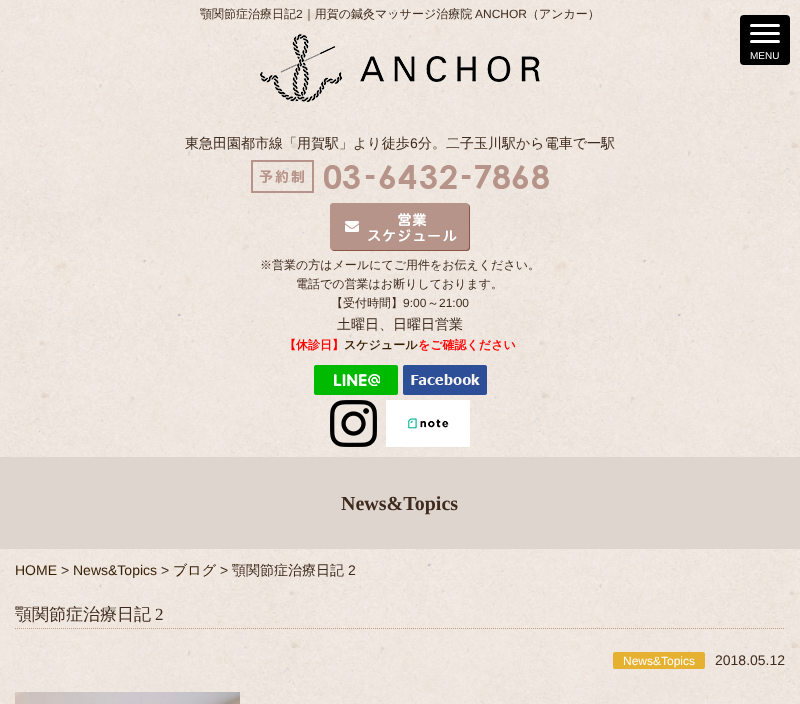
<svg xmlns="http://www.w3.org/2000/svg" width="800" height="704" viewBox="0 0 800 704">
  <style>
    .t1 { font: 500 12px WenQuanYi Zen Hei; fill: #3f2b1d; }
    .t2 { font: 12px Liberation Sans; fill: #3f2b1d; }
    .t3 { font: 500 14px WenQuanYi Zen Hei; fill: #3f2b1d; }
    .t4 { font: 14px Liberation Sans; fill: #3f2b1d; }
    .t5 { font: bold 12px WenQuanYi Zen Hei; fill: #f00; }
    .t6 { font: bold 12px WenQuanYi Zen Hei; fill: #351d00; }
    .t7 { font: 10px Liberation Sans; fill: #fff; }
    .t8 { font: bold 20px Liberation Serif; fill: #3f2b1d; }
    .t9 { font: 14px Liberation Sans; fill: #351d00; }
    .t10 { font: 500 14px WenQuanYi Zen Hei; fill: #351d00; }
    .t11 { font: 500 17px WenQuanYi Zen Hei; fill: #3f2b1d; }
    .t12 { font: 17px Liberation Serif; fill: #3f2b1d; }
    .t13 { font: 12px Liberation Sans; fill: #fff; }
  </style>
  <rect width="100%" height="100%" fill="#fff"/>
  <image x="0" y="0" width="800" height="704" href="images/1.png"/>
  <text x="200" y="18" class="t1">顎関節症治療日記</text>
  <text x="296" y="18" class="t2">2</text>
  <text x="303" y="18" class="t1">｜用賀の鍼灸マッサージ治療院</text>
  <text x="475" y="18" class="t2">ANCHOR</text>
  <text x="527" y="18" class="t1">（アンカー）</text>
  <image x="260" y="34" width="280" height="68" href="images/2.png"/>
  <text x="185" y="148" class="t3">東急田園都市線「用賀駅」より徒歩</text>
  <text x="410" y="148" class="t4">6</text>
  <text x="418" y="148" class="t3">分。二子玉川駅から電車で一駅</text>
  <image x="251" y="160" width="298" height="33" href="images/3.png"/>
  <image x="330" y="203" width="140" height="48" href="images/4.png"/>
  <text x="260" y="269" class="t1">※営業の方はメールにてご用件をお伝えください。</text>
  <text x="296" y="288" class="t1">電話での営業はお断りしております。</text>
  <text x="331" y="307" class="t1">【受付時間】</text>
  <text x="403" y="307" class="t2">9:00</text>
  <text x="427" y="307" class="t1">～</text>
  <text x="439" y="307" class="t2">21:00</text>
  <text x="337" y="329" class="t3">土曜日、日曜日営業</text>
  <text x="284" y="349" class="t5">【休診日】</text>
  <text x="344" y="349" class="t6">スケジュール</text>
  <text x="418" y="349" class="t5">をご確認ください</text>
  <image x="314" y="365" width="84" height="30" href="images/5.png"/>
  <image x="403" y="365" width="84" height="30" href="images/6.png"/>
  <image x="330" y="400" width="47" height="47" href="images/7.png"/>
  <image x="386" y="400" width="84" height="47" href="images/8.png"/>
  <rect x="740" y="15" width="50" height="50" rx="4" fill="#000"/>
  <rect x="750" y="24" width="30" height="3" rx="1.5" fill="#fff"/>
  <rect x="750" y="32" width="30" height="3" rx="1.5" fill="#fff"/>
  <rect x="750" y="40" width="30" height="3" rx="1.5" fill="#fff"/>
  <text x="750" y="59" class="t7">MENU</text>
  <rect x="0" y="457" width="800" height="92" fill="#ded5ce"/>
  <text x="341" y="510" class="t8">News&amp;Topics</text>
  <text x="15" y="575" class="t9">HOME</text>
  <text x="61" y="575" class="t4">&gt;</text>
  <text x="73" y="575" class="t9">News&amp;Topics</text>
  <text x="161" y="575" class="t4">&gt;</text>
  <text x="173" y="575" class="t10">ブログ</text>
  <text x="220" y="575" class="t4">&gt;</text>
  <text x="232" y="575" class="t3">顎関節症治療日記</text>
  <text x="348" y="575" class="t4">2</text>
  <path d="M15 628.5H785" fill="none" stroke="#be9e88" stroke-dasharray="1 1"/>
  <text x="15" y="620" class="t11">顎関節症治療日記</text>
  <text x="155" y="620" class="t12">2</text>
  <rect x="613" y="652" width="92" height="17" rx="2" fill="#e6b131"/>
  <text x="623" y="665" class="t13">News&amp;Topics</text>
  <text x="715" y="665" class="t4">2018.05.12</text>
  <image x="15" y="692" width="225" height="12" href="images/9.png"/>
</svg>
